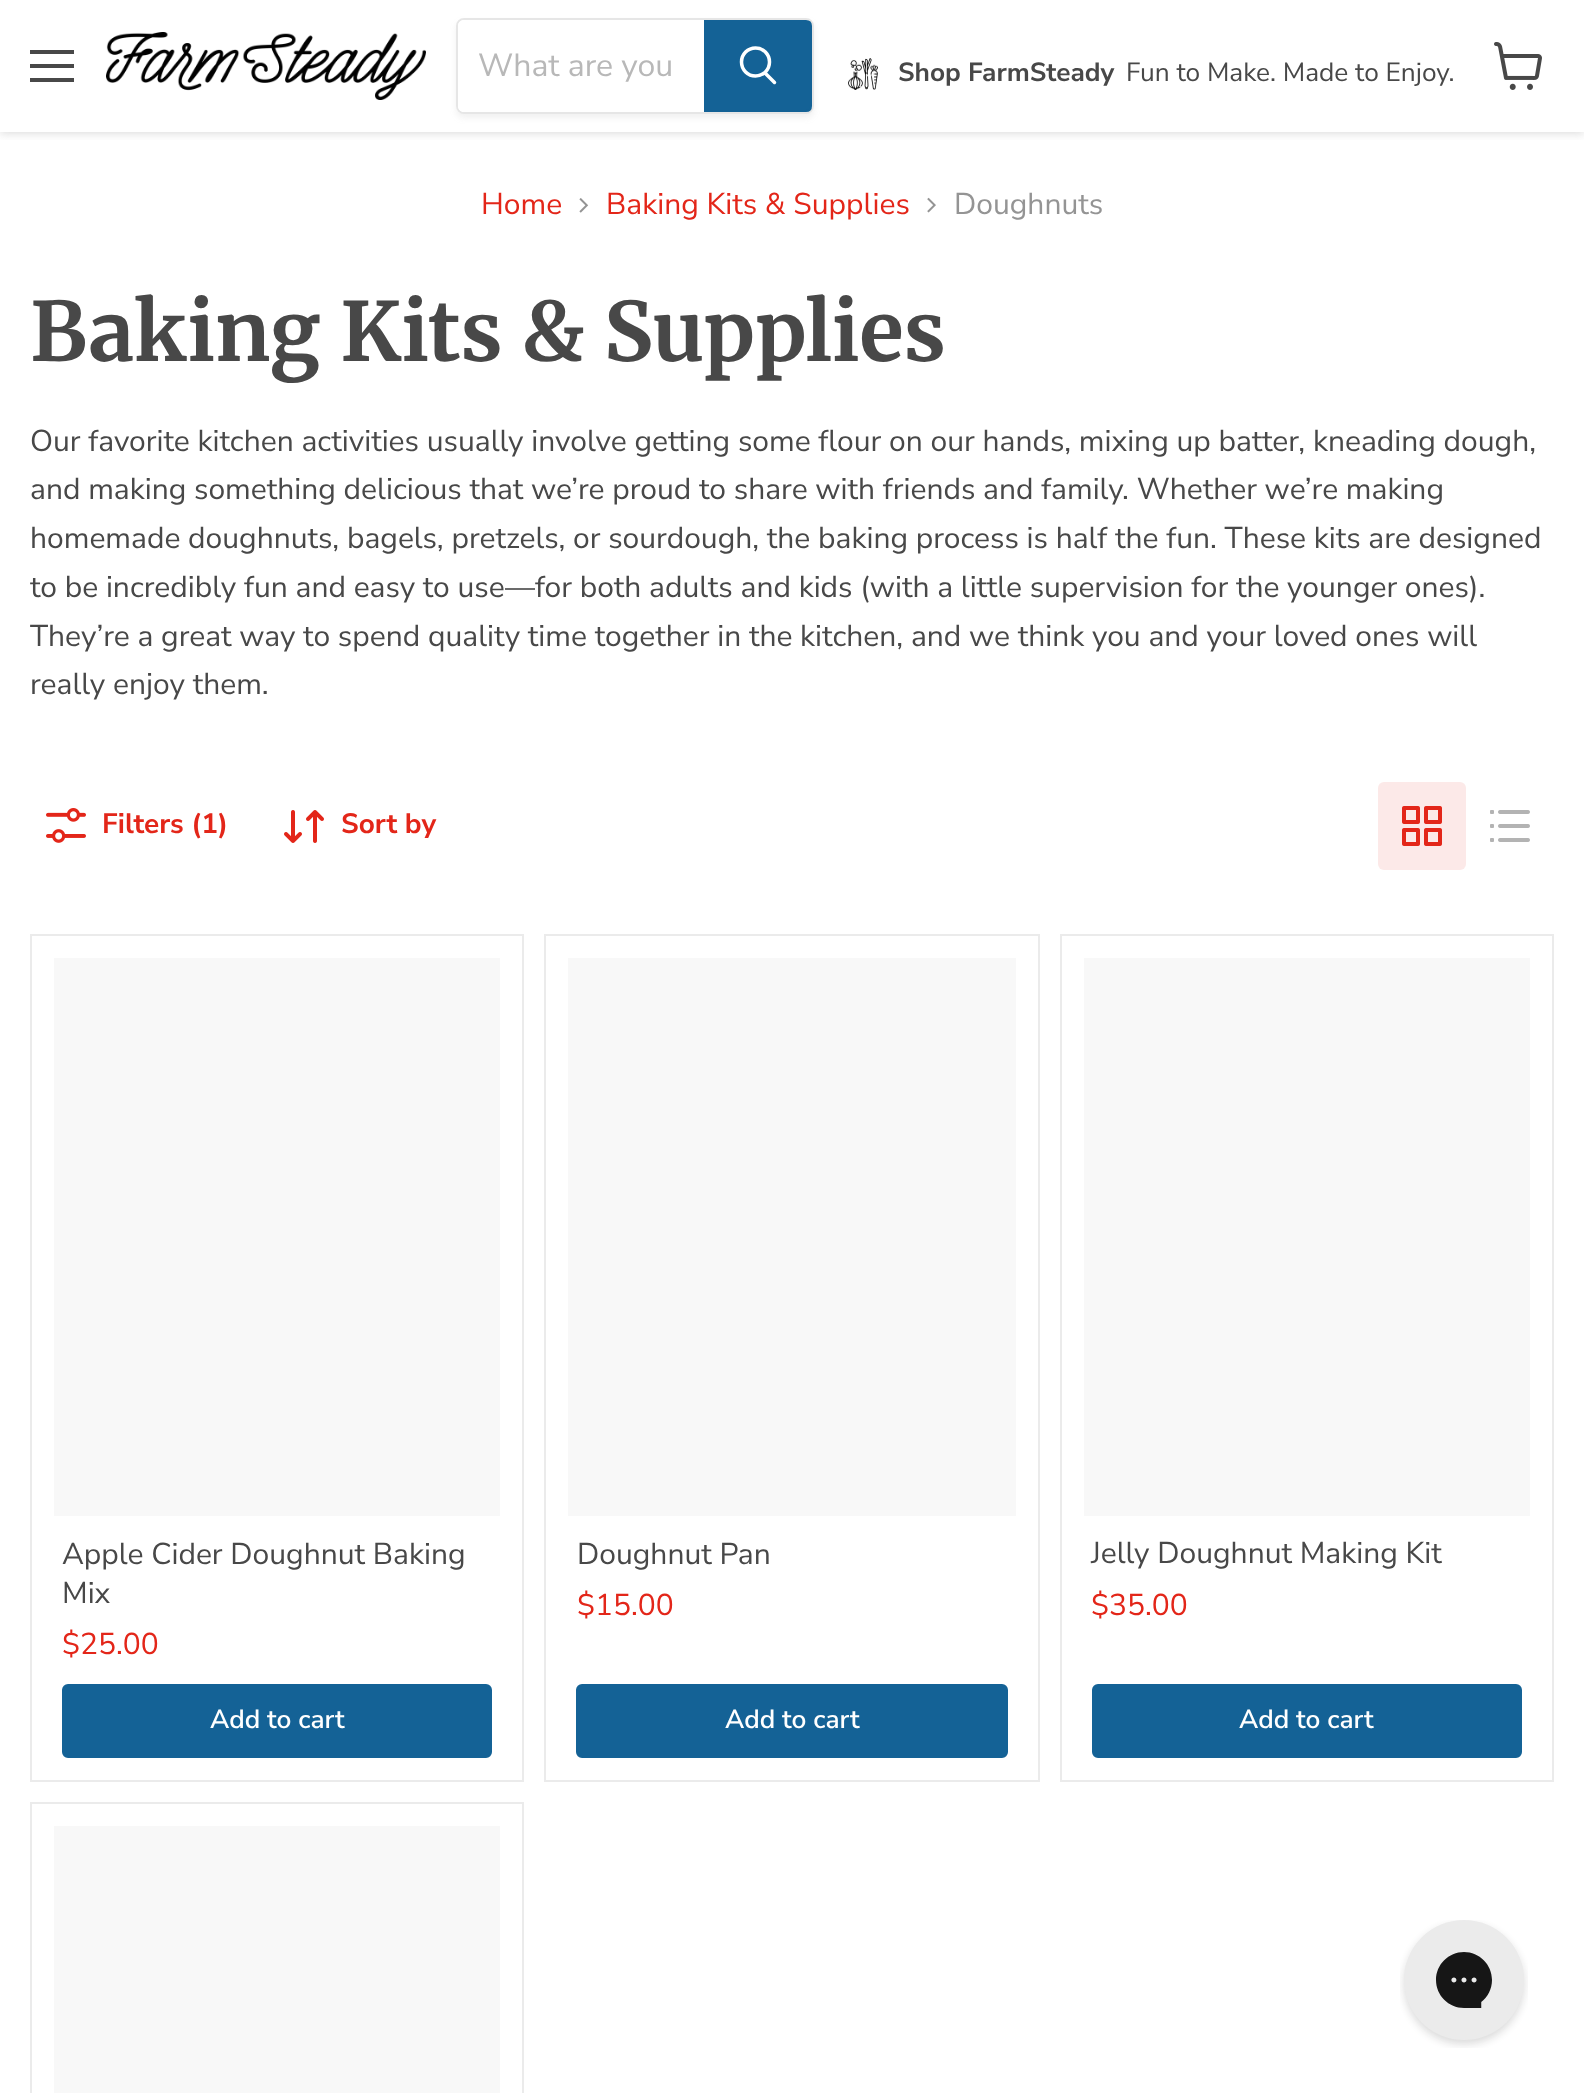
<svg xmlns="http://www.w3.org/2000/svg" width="1584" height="2093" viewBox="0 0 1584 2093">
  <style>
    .t1 { font: 200 32px Nunito Sans; fill: #b8b8b8; }
    .t2 { font: bold 26.25px Nunito Sans; fill: #484848; }
    .t3 { font: 200 26.25px Nunito Sans; fill: #484848; }
    .t4 { font: 200 30px Nunito Sans; fill: #e32619; }
    .t5 { font: 200 30px Nunito Sans; fill: #949494; }
    .t6 { font: bold 81.6px Merriweather; fill: #484848; }
    .t7 { font: 200 30px Nunito Sans; fill: #484848; }
    .t8 { font: bold 28px Nunito Sans; fill: #e32619; }
    .t9 { font: 600 26.25px Nunito Sans; fill: #fff; }
  </style>
  <defs>
    <clipPath id="clip1"><rect x="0" y="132" width="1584" height="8"/></clipPath>
    <clipPath id="clip2"><path d="M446 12H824V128H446ZM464 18H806C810.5 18 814 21.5 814 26V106C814 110.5 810.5 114 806 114H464C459.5 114 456 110.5 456 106V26C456 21.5 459.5 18 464 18Z" clip-rule="evenodd"/></clipPath>
  </defs>
  <rect width="100%" height="100%" fill="#fff"/>
  <g clip-path="url(#clip1)">
    <rect x="0" y="2" width="1584" height="132" fill="#80808040" filter="blur(4px)"/>
  </g>
  <rect x="30" y="50" width="44" height="4" fill="#484848"/>
  <rect x="30" y="64" width="44" height="4" fill="#484848"/>
  <rect x="30" y="78" width="44" height="4" fill="#484848"/>
  <image x="106" y="32" width="320" height="68" href="images/1.png"/>
  <g clip-path="url(#clip2)">
    <rect x="456" y="22" width="358" height="96" rx="8" fill="#8080801c" filter="blur(3px)"/>
  </g>
  <rect x="457" y="19" width="356" height="94" rx="7" fill="none" stroke="#80808033" stroke-width="2"/>
  <path d="M464 20H704V112H464C460.5 112 458 109.5 458 106V26C458 22.5 460.5 20 464 20Z" fill="#fff"/>
  <text x="478" y="76" class="t1">What are you</text>
  <path d="M705 21H806C809 21 811 23 811 26V106C811 109 809 111 806 111H705Z" fill="#146296" stroke="#146296" stroke-width="2"/>
  <path d="M774.5 82.5L765 73" fill="none" stroke="#fff" stroke-width="3.5" stroke-linecap="round"/>
  <circle cx="755.5" cy="62" r="14" fill="none" stroke="#fff" stroke-width="3.5"/>
  <image x="848" y="58" width="30" height="32" href="images/2.png"/>
  <text x="898" y="81" class="t2">Shop FarmSteady</text>
  <text x="1126" y="81" class="t3">Fun to Make. Made to Enjoy.</text>
  <image x="1494" y="42" width="48" height="48" href="images/3.png"/>
  <text x="481" y="214" class="t4">Home</text>
  <image x="579" y="198" width="10" height="15" href="images/4.png"/>
  <text x="606" y="214" class="t4">Baking Kits &amp; Supplies</text>
  <image x="927" y="197" width="9" height="16" href="images/5.png"/>
  <text x="954" y="214" class="t5">Doughnuts</text>
  <text x="30" y="361" class="t6">Baking Kits &amp; Supplies</text>
  <text x="30" y="451" class="t7">Our favorite kitchen activities usually involve getting some flour on our hands, mixing up batter, kneading dough,</text>
  <text x="30" y="499" class="t7">and making something delicious that we’re proud to share with friends and family. Whether we’re making</text>
  <text x="30" y="548" class="t7">homemade doughnuts, bagels, pretzels, or sourdough, the baking process is half the fun. These kits are designed</text>
  <text x="30" y="597" class="t7">to be incredibly fun and easy to use—for both adults and kids (with a little supervision for the younger ones).</text>
  <text x="30" y="646" class="t7">They’re a great way to spend quality time together in the kitchen, and we think you and your loved ones will</text>
  <text x="30" y="694" class="t7">really enjoy them.</text>
  <image x="46" y="808" width="40" height="35" href="images/6.png"/>
  <text x="102" y="833" class="t8">Filters (1)</text>
  <image x="284" y="810" width="40" height="33" href="images/7.png"/>
  <text x="341" y="833" class="t8">Sort by</text>
  <rect x="1378" y="782" width="88" height="88" rx="6" fill="#fce9e8"/>
  <image x="1402" y="806" width="40" height="40" href="images/8.png"/>
  <image x="1490" y="810" width="40" height="32" href="images/9.png"/>
  <rect x="31" y="935" width="492" height="846" fill="none" stroke="#ebebeb" stroke-width="2"/>
  <rect x="54" y="958" width="446" height="558" fill="#f8f8f8"/>
  <text x="62" y="1564" class="t7">Apple Cider Doughnut Baking</text>
  <text x="62" y="1603" class="t7">Mix</text>
  <text x="62" y="1654" class="t4">$25.00</text>
  <rect x="63" y="1685" width="428" height="72" rx="5" fill="#146296" stroke="#146296" stroke-width="2"/>
  <text x="210" y="1728" class="t9">Add to cart</text>
  <rect x="545" y="935" width="494" height="846" fill="none" stroke="#ebebeb" stroke-width="2"/>
  <rect x="568" y="958" width="448" height="558" fill="#f8f8f8"/>
  <text x="577" y="1564" class="t7">Doughnut Pan</text>
  <text x="577" y="1615" class="t4">$15.00</text>
  <rect x="577" y="1685" width="430" height="72" rx="5" fill="#146296" stroke="#146296" stroke-width="2"/>
  <text x="725" y="1728" class="t9">Add to cart</text>
  <rect x="1061" y="935" width="492" height="846" fill="none" stroke="#ebebeb" stroke-width="2"/>
  <rect x="1084" y="958" width="446" height="558" fill="#f8f8f8"/>
  <text x="1091" y="1563" class="t7">Jelly Doughnut Making Kit</text>
  <text x="1091" y="1615" class="t4">$35.00</text>
  <rect x="1093" y="1685" width="428" height="72" rx="5" fill="#146296" stroke="#146296" stroke-width="2"/>
  <text x="1239" y="1728" class="t9">Add to cart</text>
  <rect x="31" y="1803" width="492" height="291" fill="none" stroke="#ebebeb" stroke-width="2"/>
  <rect x="54" y="1826" width="446" height="267" fill="#f8f8f8"/>
  <image x="1400" y="1920" width="128" height="128" href="images/10.png"/>
</svg>
